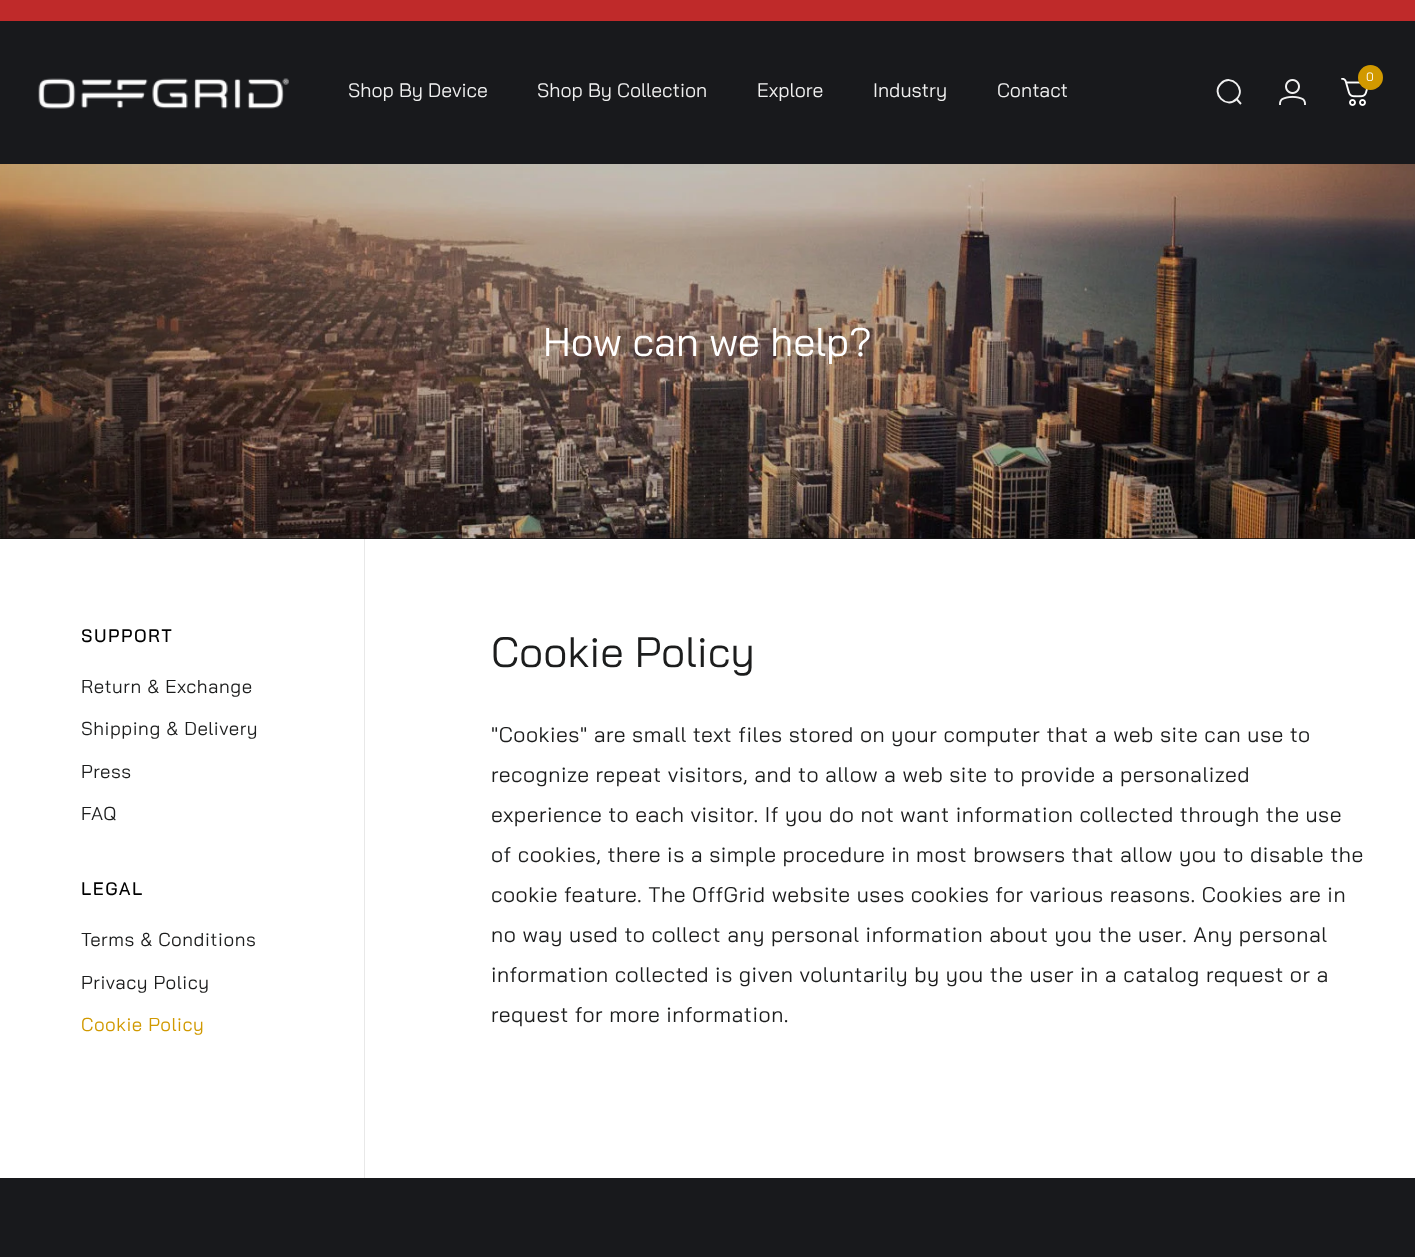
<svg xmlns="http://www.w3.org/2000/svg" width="1415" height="1257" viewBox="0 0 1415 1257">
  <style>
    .t1 { font: 12px Bai Jamjuree; fill: #fff; }
    .t2 { font: 19.5px Bai Jamjuree; fill: #f0f0f0; }
    .t3 { font: 40px Bai Jamjuree; fill: #fff; }
    .t4 { font: bold 17.5px Bai Jamjuree; letter-spacing: 2px; fill: #000; }
    .t5 { font: 18.75px Bai Jamjuree; letter-spacing: 0.53px; fill: #1c1d1d; }
    .t6 { font: 18.75px Bai Jamjuree; letter-spacing: 0.53px; fill: #d19900; }
    .t7 { font: 42.5px Bai Jamjuree; fill: #1c1d1d; }
    .t8 { font: 21.25px Bai Jamjuree; letter-spacing: 0.53px; fill: #1c1d1d; }
  </style>
  <rect width="100%" height="100%" fill="#fff"/>
  <rect x="0" y="0" width="1415" height="21" fill="#bf2a2a"/>
  <rect x="0" y="21" width="1415" height="143" fill="#18191c"/>
  <image x="1341" y="78" width="27" height="28" href="images/1.png"/>
  <circle cx="1370.5" cy="77.5" r="12.5" fill="#d19900"/>
  <text x="1366" y="81" class="t1">0</text>
  <path d="M1241 104L1236.5 99M1236.5 99C1247 89 1231 73 1221 83.5C1210.5 93.5 1226.5 109.5 1236.5 99Z" fill="none" stroke="#f0f0f0" stroke-width="1.9"/>
  <image x="1279" y="79" width="27" height="26" href="images/2.png"/>
  <image x="38" y="78" width="251" height="31" href="images/3.png"/>
  <text x="348" y="97" class="t2">Shop By Device</text>
  <text x="537" y="97" class="t2">Shop By Collection</text>
  <text x="757" y="97" class="t2">Explore</text>
  <text x="873" y="97" class="t2">Industry</text>
  <text x="997" y="97" class="t2">Contact</text>
  <rect x="0" y="538" width="1415" height="1" fill="#111"/>
  <image x="0" y="164" width="1415" height="375" href="images/4.png"/>
  <text x="543" y="356" class="t3">How can we help?</text>
  <rect x="364" y="539" width="1" height="639" fill="#e8e8e8"/>
  <text x="81" y="642" class="t4">SUPPORT</text>
  <text x="81" y="693" class="t5">Return &amp; Exchange</text>
  <text x="81" y="735" class="t5">Shipping &amp; Delivery</text>
  <text x="81" y="778" class="t5">Press</text>
  <text x="81" y="820" class="t5">FAQ</text>
  <text x="81" y="895" class="t4">LEGAL</text>
  <text x="81" y="946" class="t5">Terms &amp; Conditions</text>
  <text x="81" y="989" class="t5">Privacy Policy</text>
  <text x="81" y="1031" class="t6">Cookie Policy</text>
  <text x="491" y="667" class="t7">Cookie Policy</text>
  <text x="491" y="742" class="t8">"Cookies" are small text files stored on your computer that a web site can use to</text>
  <text x="491" y="782" class="t8">recognize repeat visitors, and to allow a web site to provide a personalized</text>
  <text x="491" y="822" class="t8">experience to each visitor. If you do not want information collected through the use</text>
  <text x="491" y="862" class="t8">of cookies, there is a simple procedure in most browsers that allow you to disable the</text>
  <text x="491" y="902" class="t8">cookie feature. The OffGrid website uses cookies for various reasons. Cookies are in</text>
  <text x="491" y="942" class="t8">no way used to collect any personal information about you the user. Any personal</text>
  <text x="491" y="982" class="t8">information collected is given voluntarily by you the user in a catalog request or a</text>
  <text x="491" y="1022" class="t8">request for more information.</text>
  <rect x="0" y="1178" width="1415" height="79" fill="#18191c"/>
</svg>
